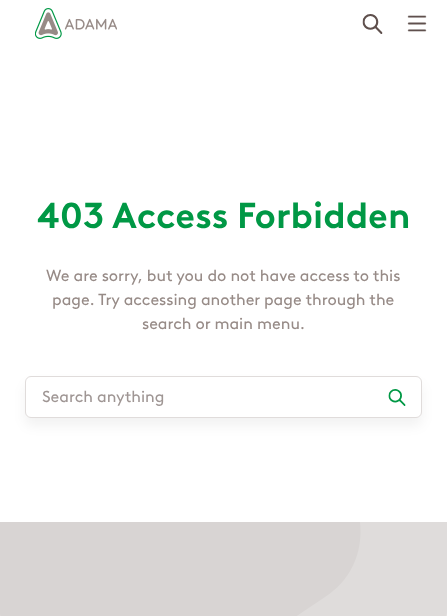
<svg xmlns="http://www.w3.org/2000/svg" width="447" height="616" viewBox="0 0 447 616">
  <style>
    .t1 { font: bold 36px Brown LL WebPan; fill: #009845; }
    .t2 { font: 16px Brown LL WebPan; fill: #978b87; }
    .t3 { font: 16px Brown LL WebPan; fill: #9f9694; }
  </style>
  <rect width="100%" height="100%" fill="#fff"/>
  <image x="35" y="8" width="82" height="31" href="images/1.png"/>
  <image x="362" y="14" width="21" height="20" href="images/2.png"/>
  <image x="407" y="15" width="20" height="17" href="images/3.png"/>
  <text x="37" y="228" class="t1">403 Access Forbidden</text>
  <text x="46" y="281" class="t2">We are sorry, but you do not have access to this</text>
  <text x="52" y="305" class="t2">page. Try accessing another page through the</text>
  <text x="142" y="329" class="t2">search or main menu.</text>
  <rect x="25" y="384" width="397" height="42" rx="6" fill="#0000000d" filter="blur(6px)"/>
  <rect x="25.5" y="376.5" width="396" height="41" rx="5.5" fill="#fff" stroke="#e0dcdb"/>
  <text x="42" y="402" class="t3">Search anything</text>
  <image x="388" y="389" width="18" height="17" href="images/4.png"/>
  <path d="M0 522H447V612C447 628.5 433.5 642 417 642H30C13.5 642 0 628.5 0 612Z" fill="#dfdcdb"/>
  <path d="M0 522V612C0 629 13 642 30 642H258L325 597C353 579 363 550 360 522Z" fill="#d8d4d3"/>
</svg>
